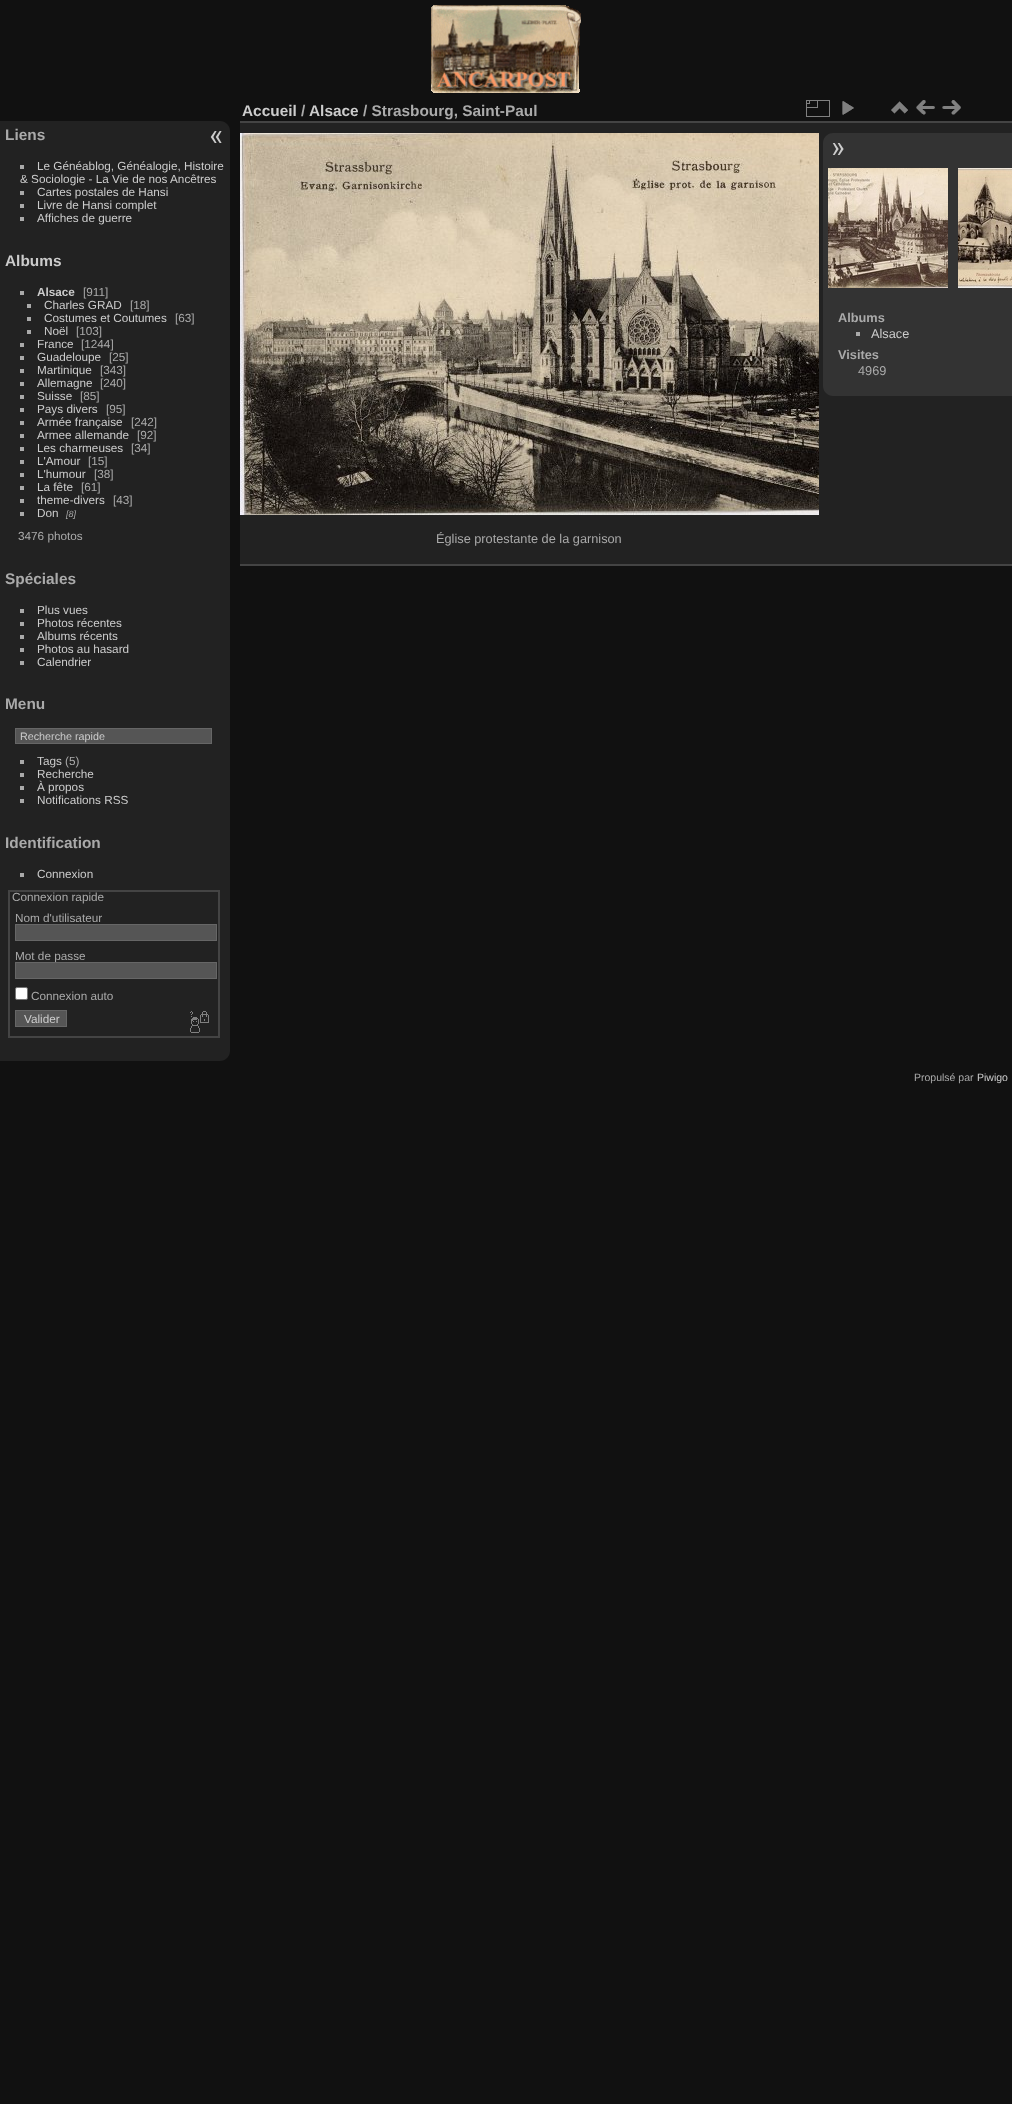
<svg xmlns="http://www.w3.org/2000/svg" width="1012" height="2104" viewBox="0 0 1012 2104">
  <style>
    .t1 { font: bold 15.4px Liberation Sans; fill: #aaa; }
    .t2 { font: 11.75px Liberation Sans; fill: #ccc; }
    .t3 { font: bold 15.4px Liberation Sans; fill: #ccc; }
    .t4 { font: bold 11.75px Liberation Sans; fill: #ccc; }
    .t5 { font: 11.75px Liberation Sans; fill: #aaa; }
    .t6 { font: italic 9px Liberation Sans; fill: #aaa; }
    .t7 { font: 10.75px Liberation Sans; fill: #ccc; }
    .t8 { font: bold 12.75px Liberation Sans; fill: #aaa; }
    .t9 { font: 12.75px Liberation Sans; fill: #ccc; }
    .t10 { font: 12.75px Liberation Sans; fill: #aaa; }
    .t11 { font: 10.5px Liberation Sans; fill: #aaa; }
    .t12 { font: 10.5px Liberation Sans; fill: #ccc; }
  </style>
  <rect width="100%" height="100%" fill="#111"/>
  <image x="431" y="5" width="150" height="88" href="images/1.png"/>
  <path d="M0 121H220C225.5 121 230 125.5 230 131V1051C230 1056.5 225.5 1061 220 1061H0Z" fill="#222"/>
  <text x="5" y="140" class="t1">Liens</text>
  <rect x="20" y="165" width="4" height="4" fill="#aaa"/>
  <text x="37" y="170" class="t2">Le Généablog, Généalogie, Histoire</text>
  <text x="20" y="183" class="t2">&amp; Sociologie - La Vie de nos Ancêtres</text>
  <rect x="20" y="191" width="4" height="4" fill="#aaa"/>
  <text x="37" y="196" class="t2">Cartes postales de Hansi</text>
  <rect x="20" y="204" width="4" height="4" fill="#aaa"/>
  <text x="37" y="209" class="t2">Livre de Hansi complet</text>
  <rect x="20" y="217" width="4" height="4" fill="#aaa"/>
  <text x="37" y="222" class="t2">Affiches de guerre</text>
  <text x="5" y="266" class="t3">Albums</text>
  <rect x="20" y="291" width="4" height="4" fill="#aaa"/>
  <text x="37" y="296" class="t4">Alsace</text>
  <text x="83" y="296" class="t5">[911]</text>
  <rect x="27" y="304" width="4" height="4" fill="#aaa"/>
  <text x="44" y="309" class="t2">Charles GRAD</text>
  <text x="130" y="309" class="t5">[18]</text>
  <rect x="27" y="317" width="4" height="4" fill="#aaa"/>
  <text x="44" y="322" class="t2">Costumes et Coutumes</text>
  <text x="175" y="322" class="t5">[63]</text>
  <rect x="27" y="330" width="4" height="4" fill="#aaa"/>
  <text x="44" y="335" class="t2">Noël</text>
  <text x="76" y="335" class="t5">[103]</text>
  <rect x="20" y="343" width="4" height="4" fill="#aaa"/>
  <text x="37" y="348" class="t2">France</text>
  <text x="81" y="348" class="t5">[1244]</text>
  <rect x="20" y="356" width="4" height="4" fill="#aaa"/>
  <text x="37" y="361" class="t2">Guadeloupe</text>
  <text x="109" y="361" class="t5">[25]</text>
  <rect x="20" y="369" width="4" height="4" fill="#aaa"/>
  <text x="37" y="374" class="t2">Martinique</text>
  <text x="100" y="374" class="t5">[343]</text>
  <rect x="20" y="382" width="4" height="4" fill="#aaa"/>
  <text x="37" y="387" class="t2">Allemagne</text>
  <text x="100" y="387" class="t5">[240]</text>
  <rect x="20" y="395" width="4" height="4" fill="#aaa"/>
  <text x="37" y="400" class="t2">Suisse</text>
  <text x="80" y="400" class="t5">[85]</text>
  <rect x="20" y="408" width="4" height="4" fill="#aaa"/>
  <text x="37" y="413" class="t2">Pays divers</text>
  <text x="106" y="413" class="t5">[95]</text>
  <rect x="20" y="421" width="4" height="4" fill="#aaa"/>
  <text x="37" y="426" class="t2">Armée française</text>
  <text x="131" y="426" class="t5">[242]</text>
  <rect x="20" y="434" width="4" height="4" fill="#aaa"/>
  <text x="37" y="439" class="t2">Armee allemande</text>
  <text x="137" y="439" class="t5">[92]</text>
  <rect x="20" y="447" width="4" height="4" fill="#aaa"/>
  <text x="37" y="452" class="t2">Les charmeuses</text>
  <text x="131" y="452" class="t5">[34]</text>
  <rect x="20" y="460" width="4" height="4" fill="#aaa"/>
  <text x="37" y="465" class="t2">L'Amour</text>
  <text x="88" y="465" class="t5">[15]</text>
  <rect x="20" y="473" width="4" height="4" fill="#aaa"/>
  <text x="37" y="478" class="t2">L'humour</text>
  <text x="94" y="478" class="t5">[38]</text>
  <rect x="20" y="486" width="4" height="4" fill="#aaa"/>
  <text x="37" y="491" class="t2">La fête</text>
  <text x="81" y="491" class="t5">[61]</text>
  <rect x="20" y="499" width="4" height="4" fill="#aaa"/>
  <text x="37" y="504" class="t2">theme-divers</text>
  <text x="113" y="504" class="t5">[43]</text>
  <rect x="20" y="512" width="4" height="4" fill="#aaa"/>
  <text x="37" y="517" class="t2">Don</text>
  <text x="66" y="517" class="t6">[8]</text>
  <text x="18" y="540" class="t5">3476 photos</text>
  <text x="5" y="584" class="t1">Spéciales</text>
  <rect x="20" y="609" width="4" height="4" fill="#aaa"/>
  <text x="37" y="614" class="t2">Plus vues</text>
  <rect x="20" y="622" width="4" height="4" fill="#aaa"/>
  <text x="37" y="627" class="t2">Photos récentes</text>
  <rect x="20" y="635" width="4" height="4" fill="#aaa"/>
  <text x="37" y="640" class="t2">Albums récents</text>
  <rect x="20" y="648" width="4" height="4" fill="#aaa"/>
  <text x="37" y="653" class="t2">Photos au hasard</text>
  <rect x="20" y="661" width="4" height="4" fill="#aaa"/>
  <text x="37" y="666" class="t2">Calendrier</text>
  <text x="5" y="709" class="t1">Menu</text>
  <rect x="15.5" y="728.5" width="196" height="15" fill="#555" stroke="#666"/>
  <text x="20" y="740" class="t7">Recherche rapide</text>
  <rect x="20" y="760" width="4" height="4" fill="#aaa"/>
  <text x="37" y="765" class="t2">Tags</text>
  <text x="65" y="765" class="t5">(5)</text>
  <rect x="20" y="773" width="4" height="4" fill="#aaa"/>
  <text x="37" y="778" class="t2">Recherche</text>
  <rect x="20" y="786" width="4" height="4" fill="#aaa"/>
  <text x="37" y="791" class="t2">À propos</text>
  <rect x="20" y="799" width="4" height="4" fill="#aaa"/>
  <text x="37" y="804" class="t2">Notifications RSS</text>
  <text x="5" y="848" class="t1">Identification</text>
  <rect x="20" y="873" width="4" height="4" fill="#aaa"/>
  <text x="37" y="878" class="t2">Connexion</text>
  <rect x="9" y="891" width="210" height="146" fill="none" stroke="#444" stroke-width="2"/>
  <text x="12" y="901" class="t5">Connexion rapide</text>
  <text x="15" y="922" class="t5">Nom d'utilisateur</text>
  <rect x="15.5" y="924.5" width="201" height="16" fill="#555" stroke="#666"/>
  <text x="15" y="960" class="t5">Mot de passe</text>
  <rect x="15.5" y="962.5" width="201" height="16" fill="#555" stroke="#666"/>
  <rect x="15.5" y="987.5" width="12" height="12" rx="1.5" fill="#fff" stroke="#767676"/>
  <text x="31" y="1000" class="t5">Connexion auto</text>
  <rect x="15.5" y="1010.5" width="51" height="16" fill="#555" stroke="#666"/>
  <text x="24" y="1023" class="t2">Valider</text>
  <image x="190" y="1011" width="19" height="22" href="images/2.png"/>
  <rect x="240" y="123" width="772" height="441" fill="#222"/>
  <rect x="240" y="564" width="772" height="2" fill="#444"/>
  <rect x="240" y="121" width="772" height="2" fill="#444"/>
  <text x="242" y="116" class="t3">Accueil</text>
  <text x="301" y="116" class="t1">/</text>
  <text x="309" y="116" class="t3">Alsace</text>
  <text x="363" y="116" class="t1">/ Strasbourg, Saint-Paul</text>
  <image x="806" y="100" width="24" height="17" href="images/3.png"/>
  <image x="842" y="101" width="12" height="14" href="images/4.png"/>
  <image x="891" y="101" width="17" height="13" href="images/5.png"/>
  <image x="916" y="100" width="19" height="15" href="images/6.png"/>
  <image x="942" y="100" width="19" height="15" href="images/7.png"/>
  <path d="M833 133H1012V396H833C827.5 396 823 391.5 823 386V143C823 137.5 827.5 133 833 133Z" fill="#333"/>
  <image x="832" y="143" width="12" height="12" href="images/8.png"/>
  <image x="828" y="168" width="120" height="120" href="images/9.png"/>
  <image x="958" y="168" width="54" height="120" href="images/10.png"/>
  <text x="838" y="322" class="t8">Albums</text>
  <rect x="856" y="332" width="4" height="4" fill="#aaa"/>
  <text x="871" y="338" class="t9">Alsace</text>
  <text x="838" y="359" class="t8">Visites</text>
  <text x="858" y="375" class="t10">4969</text>
  <image x="240" y="133" width="579" height="382" href="images/11.png"/>
  <text x="436" y="543" class="t10">Église protestante de la garnison</text>
  <image x="210" y="131" width="12" height="12" href="images/12.png"/>
  <text x="914" y="1081" class="t11">Propulsé par</text>
  <text x="977" y="1081" class="t12">Piwigo</text>
</svg>
